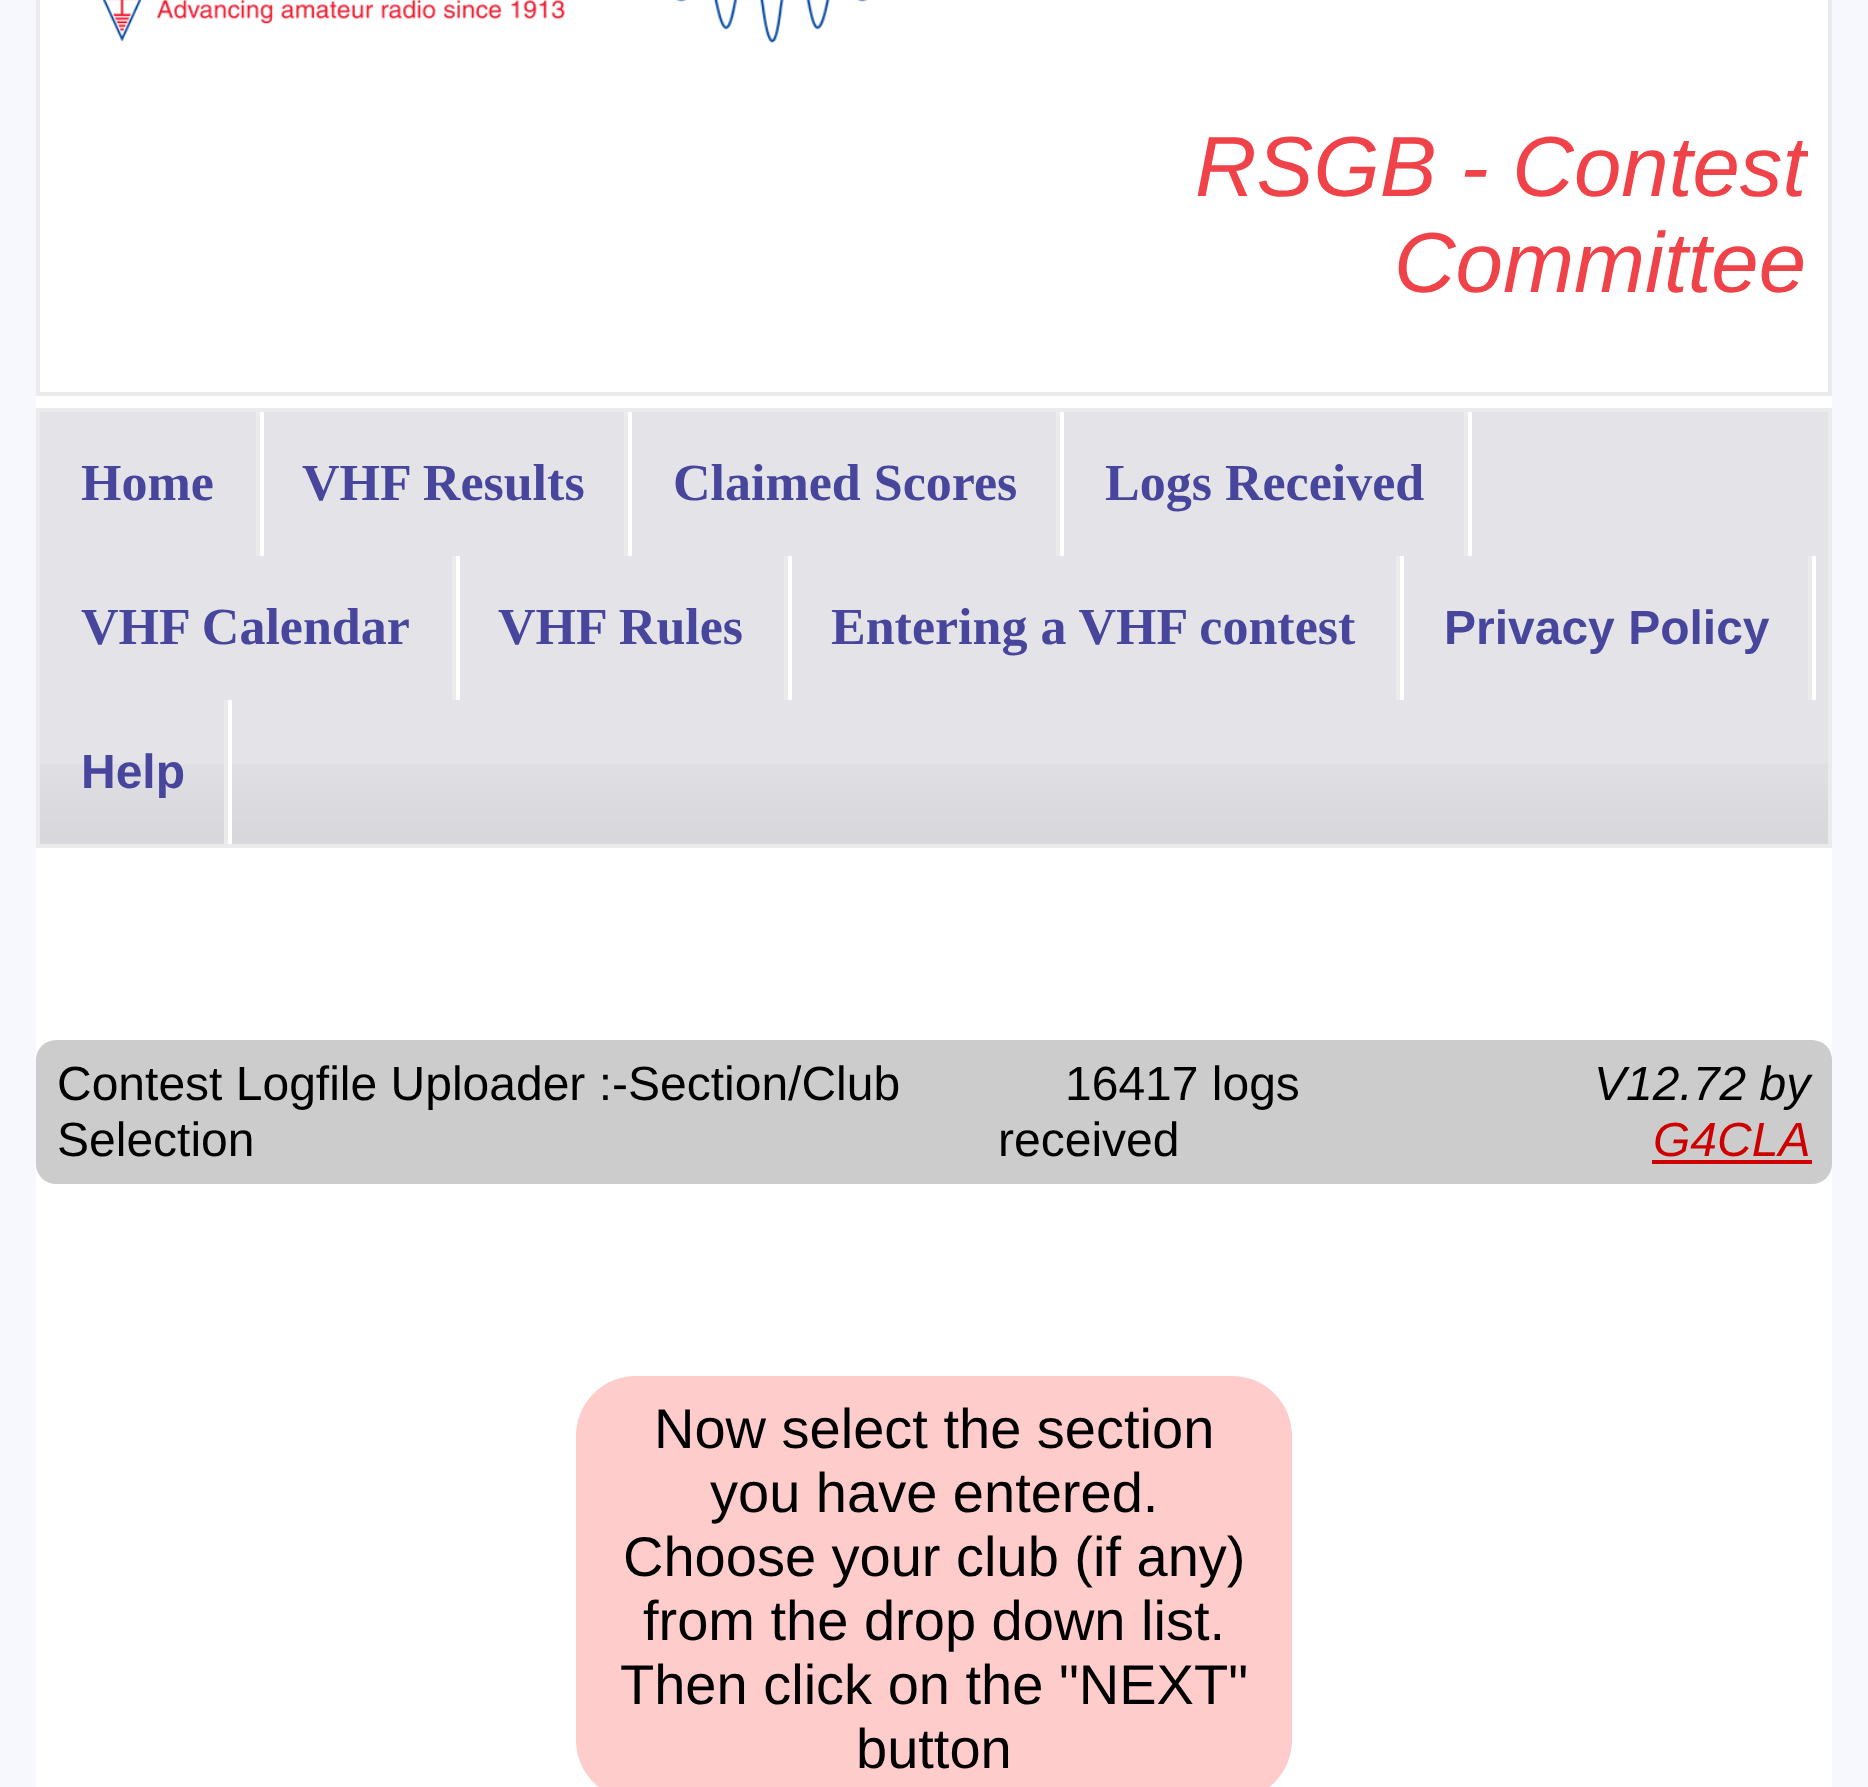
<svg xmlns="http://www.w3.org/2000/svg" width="1868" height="1787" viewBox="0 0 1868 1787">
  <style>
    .t1 { font: italic 85.25px Liberation Sans; fill: #f04249; }
    .t2 { font: bold 52px Liberation Serif; fill: #47469c; }
    .t3 { font: bold 48px Liberation Sans; fill: #47469c; }
    .t4 { font: 48px Liberation Sans; fill: #000; }
    .t5 { font: italic 48px Liberation Sans; fill: #000; }
    .t6 { font: italic 48px Liberation Sans; fill: #c00; }
    .t7 { font: 56px Liberation Sans; fill: #000; }
  </style>
  <defs>
    <clipPath id="clip1"><rect x="952" y="0" width="856" height="372"/></clipPath>
  </defs>
  <rect width="100%" height="100%" fill="#f7f7fe"/>
  <rect x="36" y="0" width="1796" height="1787" fill="#fff"/>
  <rect x="38" y="-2" width="1792" height="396" fill="none" stroke="#ebebeb" stroke-width="4"/>
  <image x="102" y="0" width="766" height="43" href="images/1.png"/>
  <g clip-path="url(#clip1)">
    <text x="1195" y="196" class="t1">RSGB - Contest</text>
  </g>
  <text x="1394" y="292" class="t1">Committee</text>
  <rect x="40" y="412" width="1788" height="432" fill="#e4e4e8"/>
  <image x="40" y="764" width="1788" height="80" href="images/2.png"/>
  <rect x="38" y="410" width="1792" height="436" fill="none" stroke="#ebebeb" stroke-width="4"/>
  <rect x="260" y="412" width="4" height="144" fill="#fff"/>
  <rect x="256" y="412" width="4" height="144" fill="#ebebeb"/>
  <text x="81" y="500" class="t2">Home</text>
  <rect x="628" y="412" width="4" height="144" fill="#fff"/>
  <rect x="624" y="412" width="4" height="144" fill="#ebebeb"/>
  <text x="302" y="500" class="t2">VHF Results</text>
  <rect x="1060" y="412" width="4" height="144" fill="#fff"/>
  <rect x="1056" y="412" width="4" height="144" fill="#ebebeb"/>
  <text x="673" y="500" class="t2">Claimed Scores</text>
  <rect x="1468" y="412" width="4" height="144" fill="#fff"/>
  <rect x="1464" y="412" width="4" height="144" fill="#ebebeb"/>
  <text x="1105" y="500" class="t2">Logs Received</text>
  <rect x="456" y="556" width="4" height="144" fill="#fff"/>
  <rect x="452" y="556" width="4" height="144" fill="#ebebeb"/>
  <text x="81" y="644" class="t2">VHF Calendar</text>
  <rect x="788" y="556" width="4" height="144" fill="#fff"/>
  <rect x="784" y="556" width="4" height="144" fill="#ebebeb"/>
  <text x="498" y="644" class="t2">VHF Rules</text>
  <rect x="1400" y="556" width="4" height="144" fill="#fff"/>
  <rect x="1396" y="556" width="4" height="144" fill="#ebebeb"/>
  <text x="831" y="644" class="t2">Entering a VHF contest</text>
  <rect x="1812" y="556" width="4" height="144" fill="#fff"/>
  <rect x="1808" y="556" width="4" height="144" fill="#ebebeb"/>
  <text x="1444" y="644" class="t3">Privacy Policy</text>
  <rect x="228" y="700" width="4" height="144" fill="#fff"/>
  <rect x="224" y="700" width="4" height="144" fill="#ebebeb"/>
  <text x="81" y="788" class="t3">Help</text>
  <rect x="36" y="1040" width="1796" height="144" rx="20" fill="#ccc"/>
  <text x="57" y="1100" class="t4">Contest Logfile Uploader :-Section/Club</text>
  <text x="57" y="1156" class="t4">Selection</text>
  <text x="1065" y="1100" class="t4">16417 logs</text>
  <text x="998" y="1156" class="t4">received</text>
  <text x="1594" y="1100" class="t5">V12.72 by</text>
  <text x="1653" y="1156" class="t6">G4CLA</text>
  <rect x="1652" y="1160" width="160" height="4" fill="#c00"/>
  <rect x="576" y="1376" width="716" height="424" rx="60" fill="#fcc"/>
  <text x="654" y="1448" class="t7">Now select the section</text>
  <text x="710" y="1512" class="t7">you have entered.</text>
  <text x="623" y="1576" class="t7">Choose your club (if any)</text>
  <text x="643" y="1640" class="t7">from the drop down list.</text>
  <text x="620" y="1704" class="t7">Then click on the "NEXT"</text>
  <text x="856" y="1768" class="t7">button</text>
</svg>
